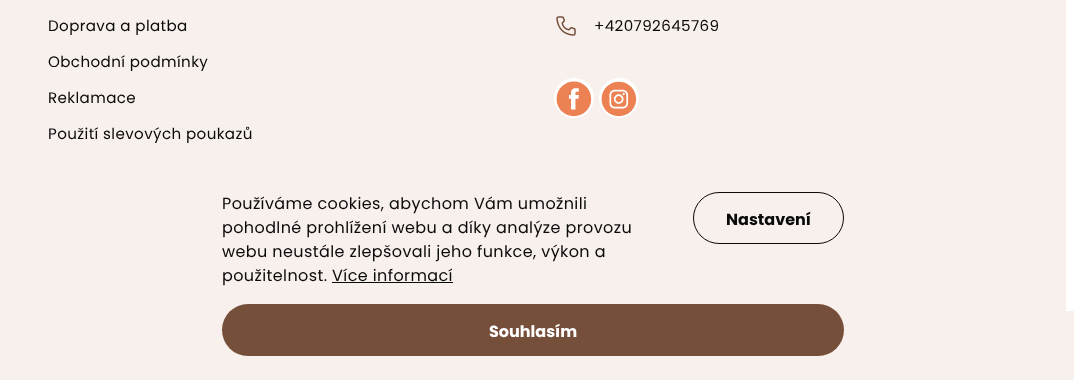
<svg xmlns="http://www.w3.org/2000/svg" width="1081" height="380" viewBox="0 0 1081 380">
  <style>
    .t1 { font: 15.1px Poppins; letter-spacing: 0.4px; fill: #0a0a09; }
    .t2 { font: 16px Poppins; letter-spacing: 0.4px; fill: #0a0a09; }
    .t3 { font: bold 16px Poppins; fill: #0a0a09; }
    .t4 { font: bold 16px Poppins; fill: #fff; }
  </style>
  <rect width="100%" height="100%" fill="#fff"/>
  <rect x="0" y="0" width="1066" height="380" fill="#f7f0ed"/>
  <text x="48" y="31" class="t1">Doprava a platba</text>
  <text x="48" y="67" class="t1">Obchodní podmínky</text>
  <text x="48" y="103" class="t1">Reklamace</text>
  <text x="48" y="139" class="t1">Použití slevových poukazů</text>
  <image x="556" y="16" width="20" height="20" href="images/1.png"/>
  <text x="594" y="31" class="t1">+420792645769</text>
  <circle cx="574" cy="98" r="20" fill="#fff"/>
  <image x="556" y="81" width="36" height="36" href="images/2.png"/>
  <circle cx="619" cy="98" r="20" fill="#fff"/>
  <image x="601" y="81" width="36" height="36" href="images/3.png"/>
  <rect x="1066" y="311" width="8" height="69" fill="#f7f0ed"/>
  <text x="222" y="209" class="t2">Používáme cookies, abychom Vám umožnili</text>
  <text x="222" y="233" class="t2">pohodlné prohlížení webu a díky analýze provozu</text>
  <text x="222" y="257" class="t2">webu neustále zlepšovali jeho funkce, výkon a</text>
  <text x="222" y="281" class="t2">použitelnost. Více informací</text>
  <rect x="332" y="282" width="121" height="1" fill="#0a0a09"/>
  <rect x="693.5" y="192.5" width="150" height="51" rx="25.5" fill="none" stroke="#0a0a09"/>
  <text x="726" y="225" class="t3">Nastavení</text>
  <rect x="222" y="304" width="622" height="52" rx="26" fill="#764f3a"/>
  <text x="489" y="337" class="t4">Souhlasím</text>
</svg>
